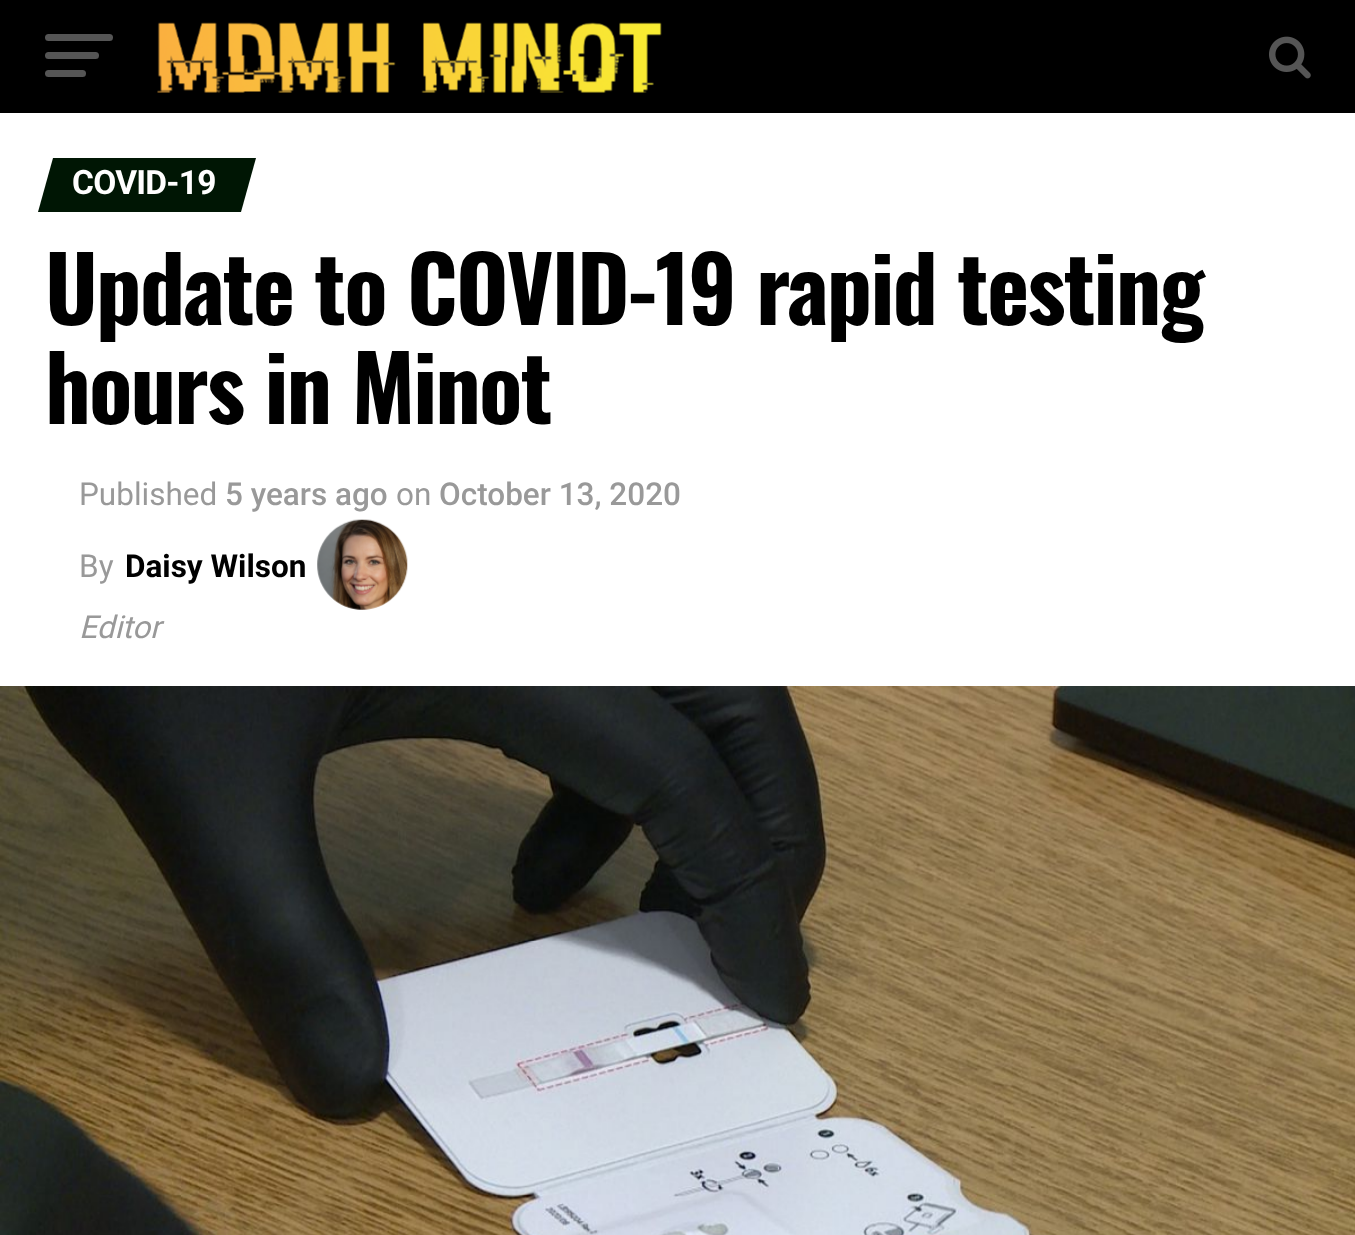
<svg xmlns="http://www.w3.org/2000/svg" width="1355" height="1235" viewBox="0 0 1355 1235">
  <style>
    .t1 { font: bold 33.5px Roboto; letter-spacing: -0.75px; fill: #fff; }
    .t2 { font: bold 90px Oswald; letter-spacing: -1.8px; fill: #000; }
    .t3 { font: 31.5px Roboto; fill: #999; }
    .t4 { font: 500 31.5px Roboto; fill: #999; }
    .t5 { font: bold 31.5px Roboto; fill: #000; }
    .t6 { font: italic 31.5px Roboto; fill: #999; }
  </style>
  <rect width="100%" height="100%" fill="#fff"/>
  <rect x="0" y="0" width="1355" height="113" fill="#000"/>
  <rect x="45" y="34" width="68" height="7" rx="3.5" fill="#555"/>
  <rect x="45" y="52" width="54" height="7" rx="3.5" fill="#555"/>
  <rect x="45" y="70" width="41" height="7" rx="3.5" fill="#555"/>
  <image x="157" y="22" width="505" height="71" href="images/1.png"/>
  <image x="1269" y="36" width="42" height="43" href="images/2.png"/>
  <path d="M53 158H256L241 212H38Z" fill="#001604"/>
  <text x="72" y="194" class="t1">COVID-19</text>
  <text x="45" y="325" class="t2">Update to COVID-19 rapid testing</text>
  <text x="45" y="424" class="t2">hours in Minot</text>
  <text x="79" y="505" class="t3">Published</text>
  <text x="225" y="505" class="t4">5 years ago</text>
  <text x="396" y="505" class="t3">on</text>
  <text x="439" y="505" class="t4">October 13, 2020</text>
  <text x="79" y="577" class="t3">By</text>
  <text x="125" y="577" class="t5">Daisy Wilson</text>
  <image x="317" y="519" width="91" height="91" href="images/3.png"/>
  <text x="79" y="638" class="t6">Editor</text>
  <image x="0" y="686" width="1355" height="549" href="images/4.png"/>
</svg>
